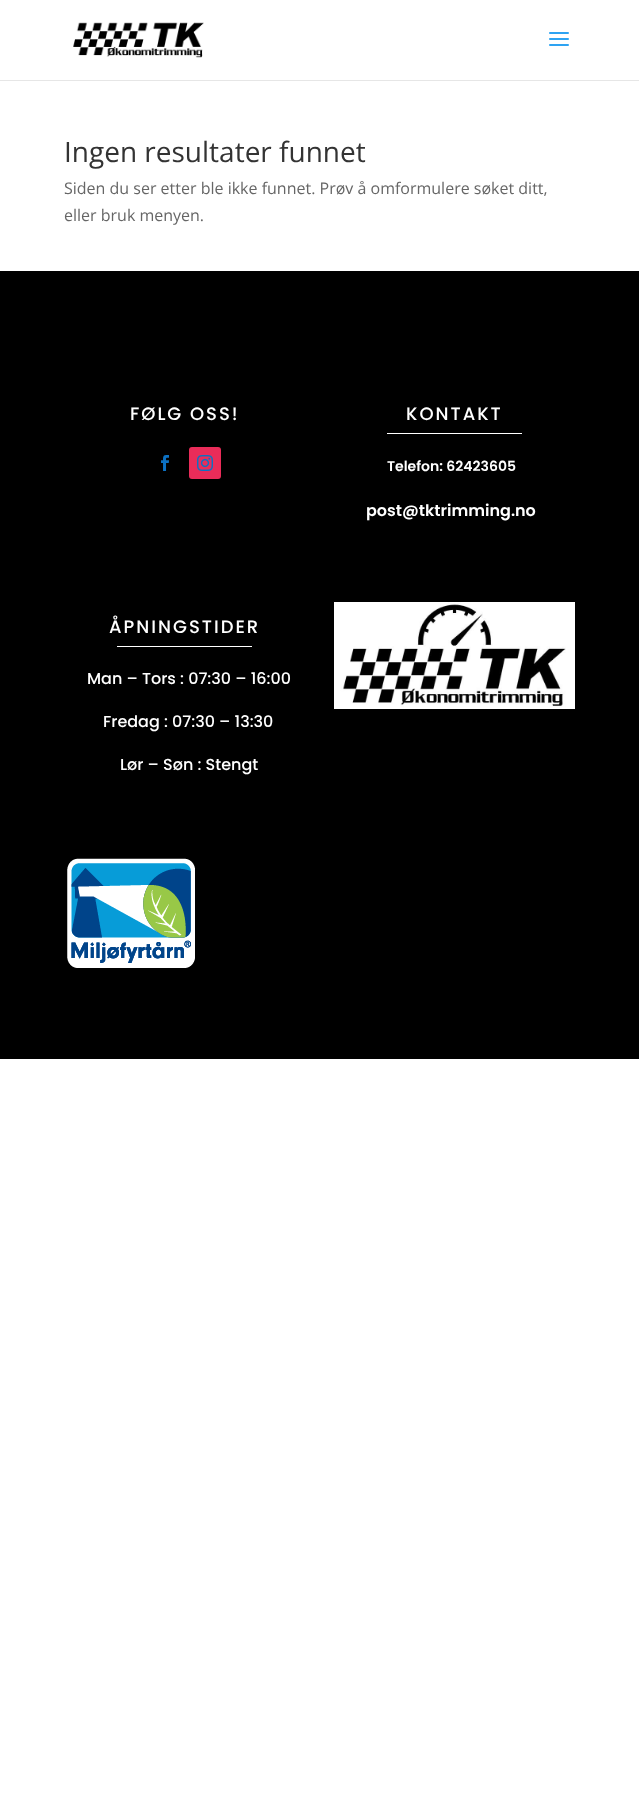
<svg xmlns="http://www.w3.org/2000/svg" width="639" height="1811" viewBox="0 0 639 1811">
  <style>
    .t1 { font: 28px Open Sans; fill: #333; }
    .t2 { font: 16px Open Sans; fill: #666; }
    .t3 { font: 500 18px Poppins; letter-spacing: 2px; fill: #fff; }
    .t4 { font: 600 14px Poppins; fill: #fff; }
    .t5 { font: 600 16px Poppins; fill: #fff; }
    .t6 { font: 500 16px Poppins; fill: #fff; }
  </style>
  <rect width="100%" height="100%" fill="#fff"/>
  <rect x="0" y="80" width="639" height="1" fill="#e6e6e6"/>
  <image x="73" y="22" width="131" height="36" href="images/1.png"/>
  <image x="549" y="32" width="20" height="14" href="images/2.png"/>
  <text x="64" y="162" class="t1">Ingen resultater funnet</text>
  <text x="64" y="194" class="t2">Siden du ser etter ble ikke funnet. Prøv å omformulere søket ditt,</text>
  <text x="64" y="221" class="t2">eller bruk menyen.</text>
  <rect x="0" y="271" width="639" height="788" fill="#000"/>
  <text x="130" y="420" class="t3">FØLG OSS!</text>
  <image x="161" y="455" width="8" height="16" href="images/3.png"/>
  <rect x="189" y="447" width="32" height="32" rx="3" fill="#ea2c59"/>
  <image x="197" y="455" width="16" height="16" href="images/4.png"/>
  <text x="406" y="420" class="t3">KONTAKT</text>
  <rect x="387" y="433" width="135" height="1" fill="#fff"/>
  <text x="387" y="471" class="t4">Telefon: 62423605</text>
  <text x="366" y="516" class="t5">post@tktrimming.no</text>
  <text x="109" y="633" class="t3">ÅPNINGSTIDER</text>
  <rect x="117" y="646" width="135" height="1" fill="#fff"/>
  <text x="87" y="684" class="t6">Man – Tors : 07:30 – 16:00</text>
  <text x="103" y="727" class="t6">Fredag : 07:30 – 13:30</text>
  <text x="120" y="770" class="t6">Lør – Søn : Stengt</text>
  <image x="334" y="602" width="241" height="107" href="images/5.png"/>
  <image x="67" y="858" width="128" height="110" href="images/6.png"/>
</svg>
